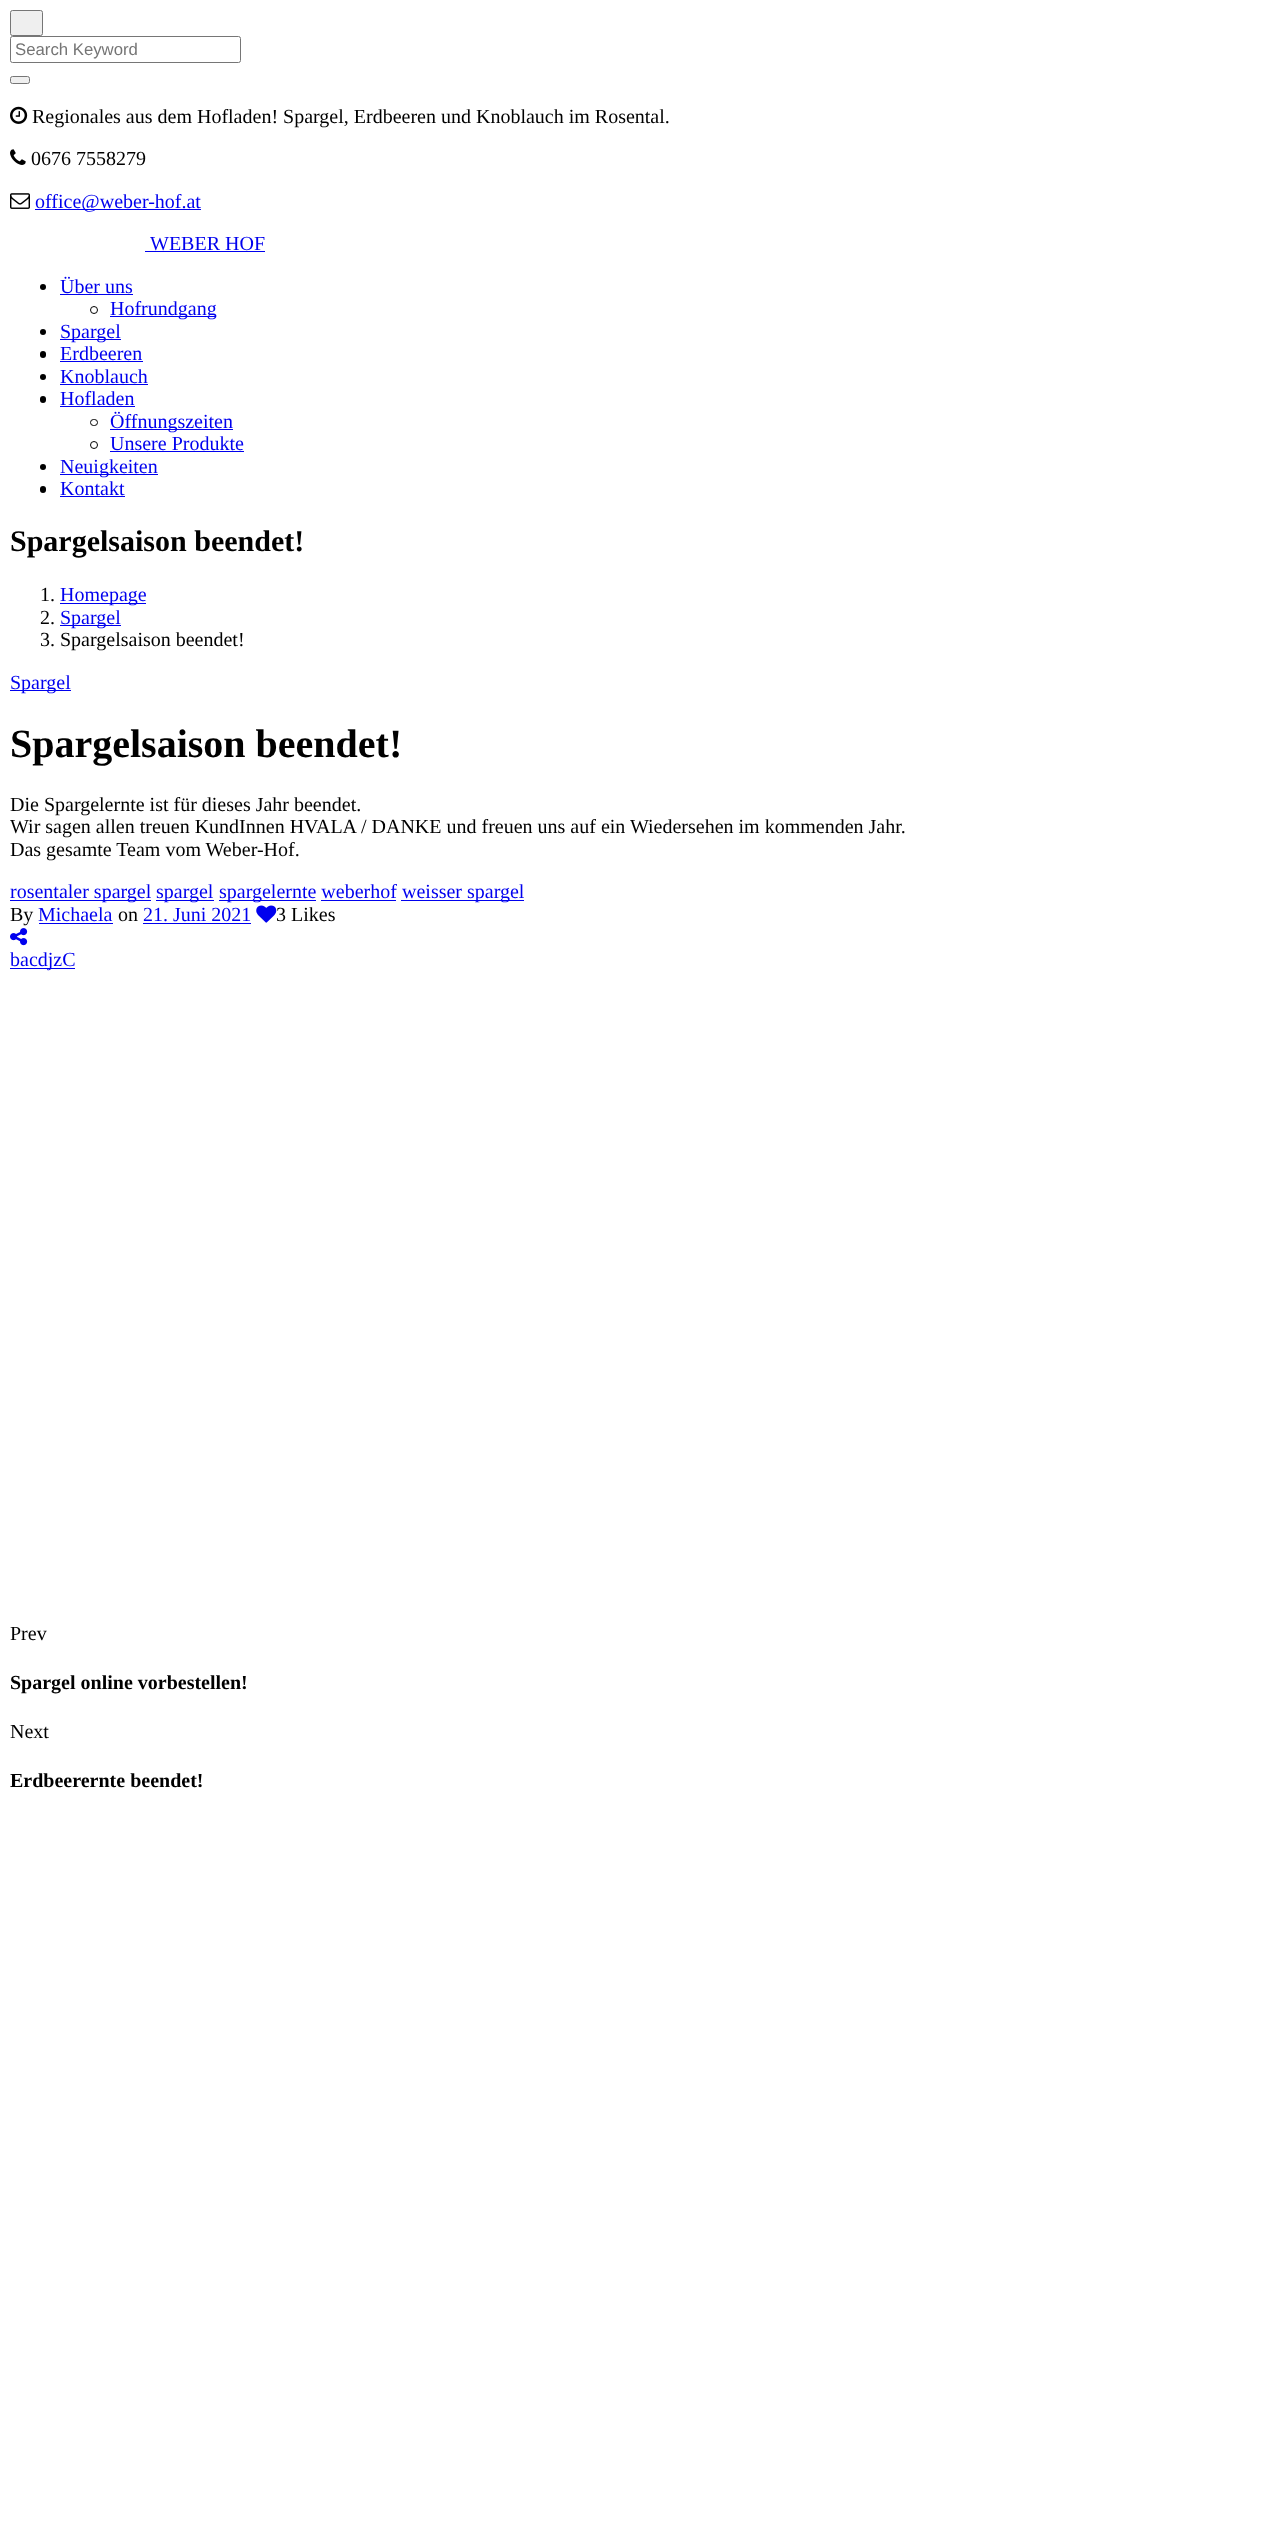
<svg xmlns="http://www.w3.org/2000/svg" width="1281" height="2542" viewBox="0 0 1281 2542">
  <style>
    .t1 { font: 16.75px Liberation Sans; fill: #757575; }
    .t2 { font: 20px Liberation Serif; fill: #000; }
    .t3 { font: 20px Liberation Serif; fill: #00e; }
    .t4 { font: bold 30px Liberation Serif; fill: #000; }
    .t5 { font: bold 40px Liberation Serif; fill: #000; }
    .t6 { font: bold 20px Liberation Serif; fill: #000; }
  </style>
  <rect width="100%" height="100%" fill="#fff"/>
  <rect x="10.5" y="10.5" width="32" height="25" rx="2" fill="#efefef" stroke="#767676"/>
  <rect x="10.5" y="36.5" width="230" height="26" rx="2" fill="none" stroke="#767676"/>
  <text x="15" y="55" class="t1">Search Keyword</text>
  <rect x="10.5" y="76.5" width="19" height="7" rx="2" fill="#efefef" stroke="#767676"/>
  <image x="10" y="106" width="18" height="18" href="images/1.png"/>
  <text x="32" y="123" class="t2">Regionales aus dem Hofladen! Spargel, Erdbeeren und Knoblauch im Rosental.</text>
  <image x="10" y="149" width="16" height="16" href="images/2.png"/>
  <text x="31" y="165" class="t2">0676 7558279</text>
  <image x="10" y="193" width="20" height="16" href="images/3.png"/>
  <rect x="35" y="209" width="166" height="1" fill="#00e"/>
  <text x="35" y="208" class="t3">office@weber-hof.at</text>
  <text x="150" y="250" class="t3">WEBER HOF</text>
  <rect x="145" y="251" width="120" height="1" fill="#00e"/>
  <circle cx="43" cy="287" r="3" fill="#000"/>
  <text x="60" y="293" class="t3">Über uns</text>
  <rect x="60" y="294" width="73" height="1" fill="#00e"/>
  <circle cx="94" cy="310" r="3.5" fill="none" stroke="#000"/>
  <rect x="110" y="316" width="106" height="1" fill="#00e"/>
  <text x="110" y="315" class="t3">Hofrundgang</text>
  <circle cx="43" cy="332" r="3" fill="#000"/>
  <rect x="60" y="339" width="61" height="1" fill="#00e"/>
  <text x="60" y="338" class="t3">Spargel</text>
  <rect x="40" y="351" width="6" height="7" rx="3" fill="#000"/>
  <text x="60" y="360" class="t3">Erdbeeren</text>
  <rect x="60" y="361" width="83" height="1" fill="#00e"/>
  <circle cx="43" cy="377" r="3" fill="#000"/>
  <text x="60" y="383" class="t3">Knoblauch</text>
  <rect x="60" y="384" width="88" height="1" fill="#00e"/>
  <rect x="40" y="396" width="6" height="7" rx="3" fill="#000"/>
  <text x="60" y="405" class="t3">Hofladen</text>
  <rect x="60" y="406" width="75" height="1" fill="#00e"/>
  <rect x="90.5" y="419.5" width="7" height="6" rx="3" fill="none" stroke="#000"/>
  <rect x="110" y="429" width="123" height="1" fill="#00e"/>
  <text x="110" y="428" class="t3">Öffnungszeiten</text>
  <circle cx="94" cy="445" r="3.5" fill="none" stroke="#000"/>
  <text x="110" y="450" class="t3">Unsere Produkte</text>
  <rect x="110" y="451" width="134" height="1" fill="#00e"/>
  <circle cx="43" cy="467" r="3" fill="#000"/>
  <rect x="60" y="474" width="98" height="1" fill="#00e"/>
  <text x="60" y="473" class="t3">Neuigkeiten</text>
  <rect x="40" y="486" width="6" height="7" rx="3" fill="#000"/>
  <text x="60" y="495" class="t3">Kontakt</text>
  <rect x="60" y="496" width="65" height="1" fill="#00e"/>
  <text x="10" y="551" class="t4">Spargelsaison beendet!</text>
  <text x="40" y="601" class="t2">1.</text>
  <rect x="60" y="603" width="86" height="1" fill="#00e"/>
  <text x="60" y="601" class="t3">Homepage</text>
  <text x="40" y="624" class="t2">2.</text>
  <rect x="60" y="625" width="61" height="1" fill="#00e"/>
  <text x="60" y="624" class="t3">Spargel</text>
  <text x="40" y="646" class="t2">3. Spargelsaison beendet!</text>
  <rect x="10" y="690" width="61" height="1" fill="#00e"/>
  <text x="10" y="689" class="t3">Spargel</text>
  <text x="10" y="757" class="t5">Spargelsaison beendet!</text>
  <text x="10" y="811" class="t2">Die Spargelernte ist für dieses Jahr beendet.</text>
  <text x="10" y="833" class="t2">Wir sagen allen treuen KundInnen HVALA / DANKE und freuen uns auf ein Wiedersehen im kommenden Jahr.</text>
  <text x="10" y="856" class="t2">Das gesamte Team vom Weber-Hof.</text>
  <rect x="10" y="900" width="141" height="1" fill="#00e"/>
  <text x="10" y="898" class="t3">rosentaler spargel</text>
  <rect x="156" y="900" width="58" height="1" fill="#00e"/>
  <text x="156" y="898" class="t3">spargel</text>
  <rect x="219" y="900" width="97" height="1" fill="#00e"/>
  <text x="219" y="898" class="t3">spargelernte weberhof</text>
  <rect x="321" y="900" width="75" height="1" fill="#00e"/>
  <rect x="401" y="900" width="123" height="1" fill="#00e"/>
  <text x="402" y="898" class="t3">weisser spargel</text>
  <text x="10" y="921" class="t2">By</text>
  <text x="38" y="921" class="t3">Michaela</text>
  <rect x="39" y="923" width="74" height="1" fill="#00e"/>
  <text x="118" y="921" class="t2">on</text>
  <text x="143" y="921" class="t3">21. Juni 2021</text>
  <rect x="143" y="923" width="108" height="1" fill="#00e"/>
  <image x="256" y="905" width="21" height="18" href="images/4.png"/>
  <text x="276" y="921" class="t2">3 Likes</text>
  <image x="10" y="928" width="18" height="18" href="images/5.png"/>
  <rect x="10" y="968" width="65" height="1" fill="#00e"/>
  <text x="10" y="966" class="t3">bacdjzC</text>
  <text x="10" y="1640" class="t2">Prev</text>
  <text x="10" y="1689" class="t6">Spargel online vorbestellen!</text>
  <text x="10" y="1738" class="t2">Next</text>
  <text x="10" y="1787" class="t6">Erdbeerernte beendet!</text>
</svg>
